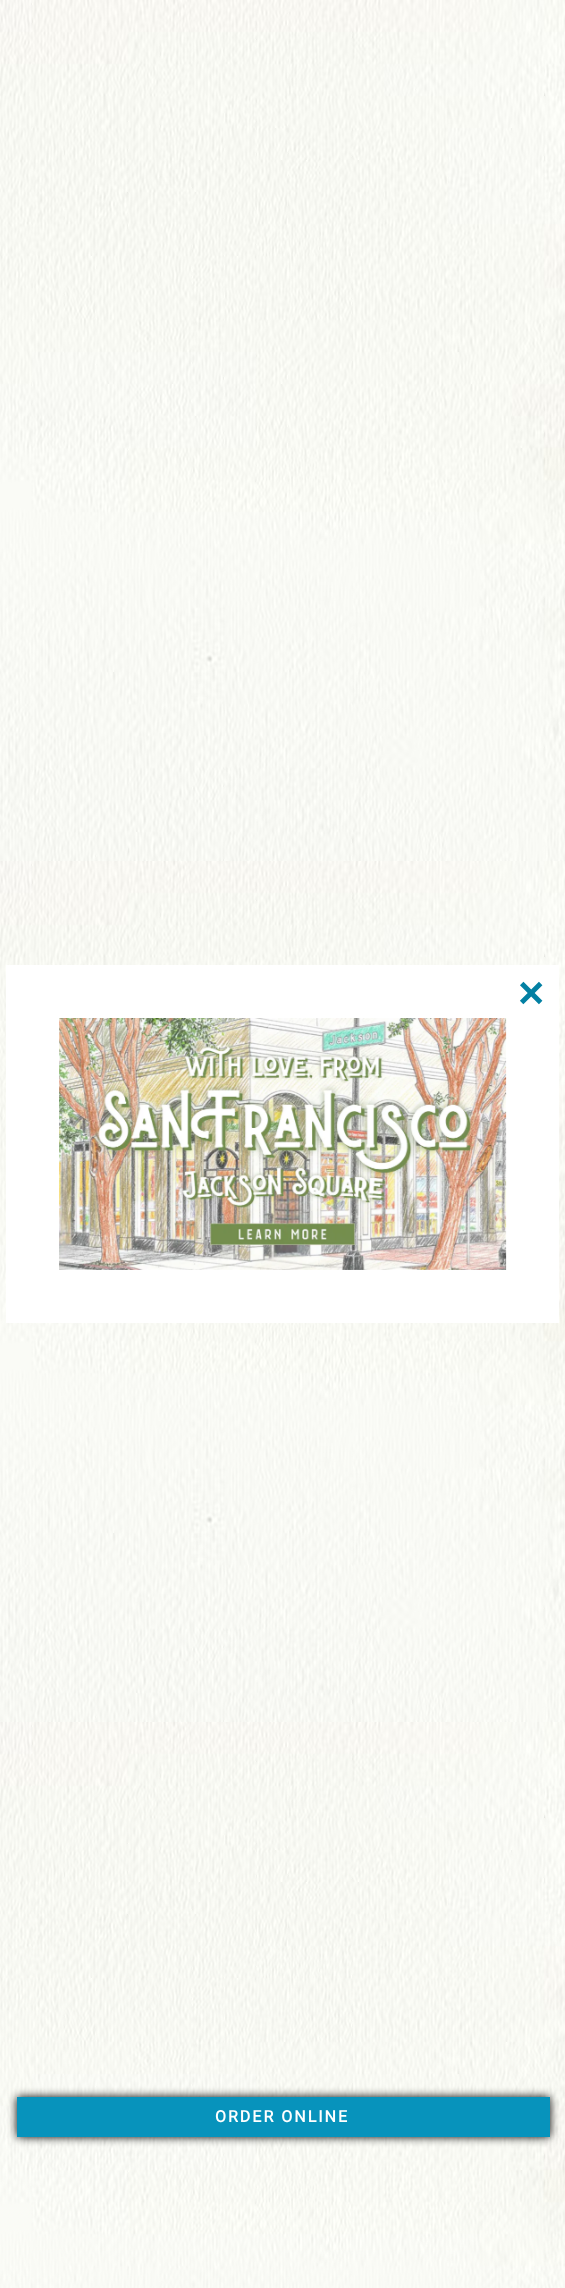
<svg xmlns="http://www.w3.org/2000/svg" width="565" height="2288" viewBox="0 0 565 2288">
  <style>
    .t1 { font: bold 45px Liberation Sans; fill: #0380a3; }
    .t2 { font: bold 16px Roboto; letter-spacing: 2px; fill: #fff; }
  </style>
  <rect width="100%" height="100%" fill="#fff"/>
  <image x="0" y="0" width="565" height="2288" href="images/1.png"/>
  <rect x="6" y="965" width="553" height="358" fill="#fff"/>
  <text x="518" y="1008" class="t1">×</text>
  <image x="59" y="1018" width="448" height="252" href="images/2.png"/>
  <rect x="17" y="2097" width="533" height="40" fill="#000" filter="blur(5px)"/>
  <rect x="17" y="2097" width="533" height="40" fill="#0793bc"/>
  <text x="215" y="2122" class="t2">ORDER ONLINE</text>
</svg>
